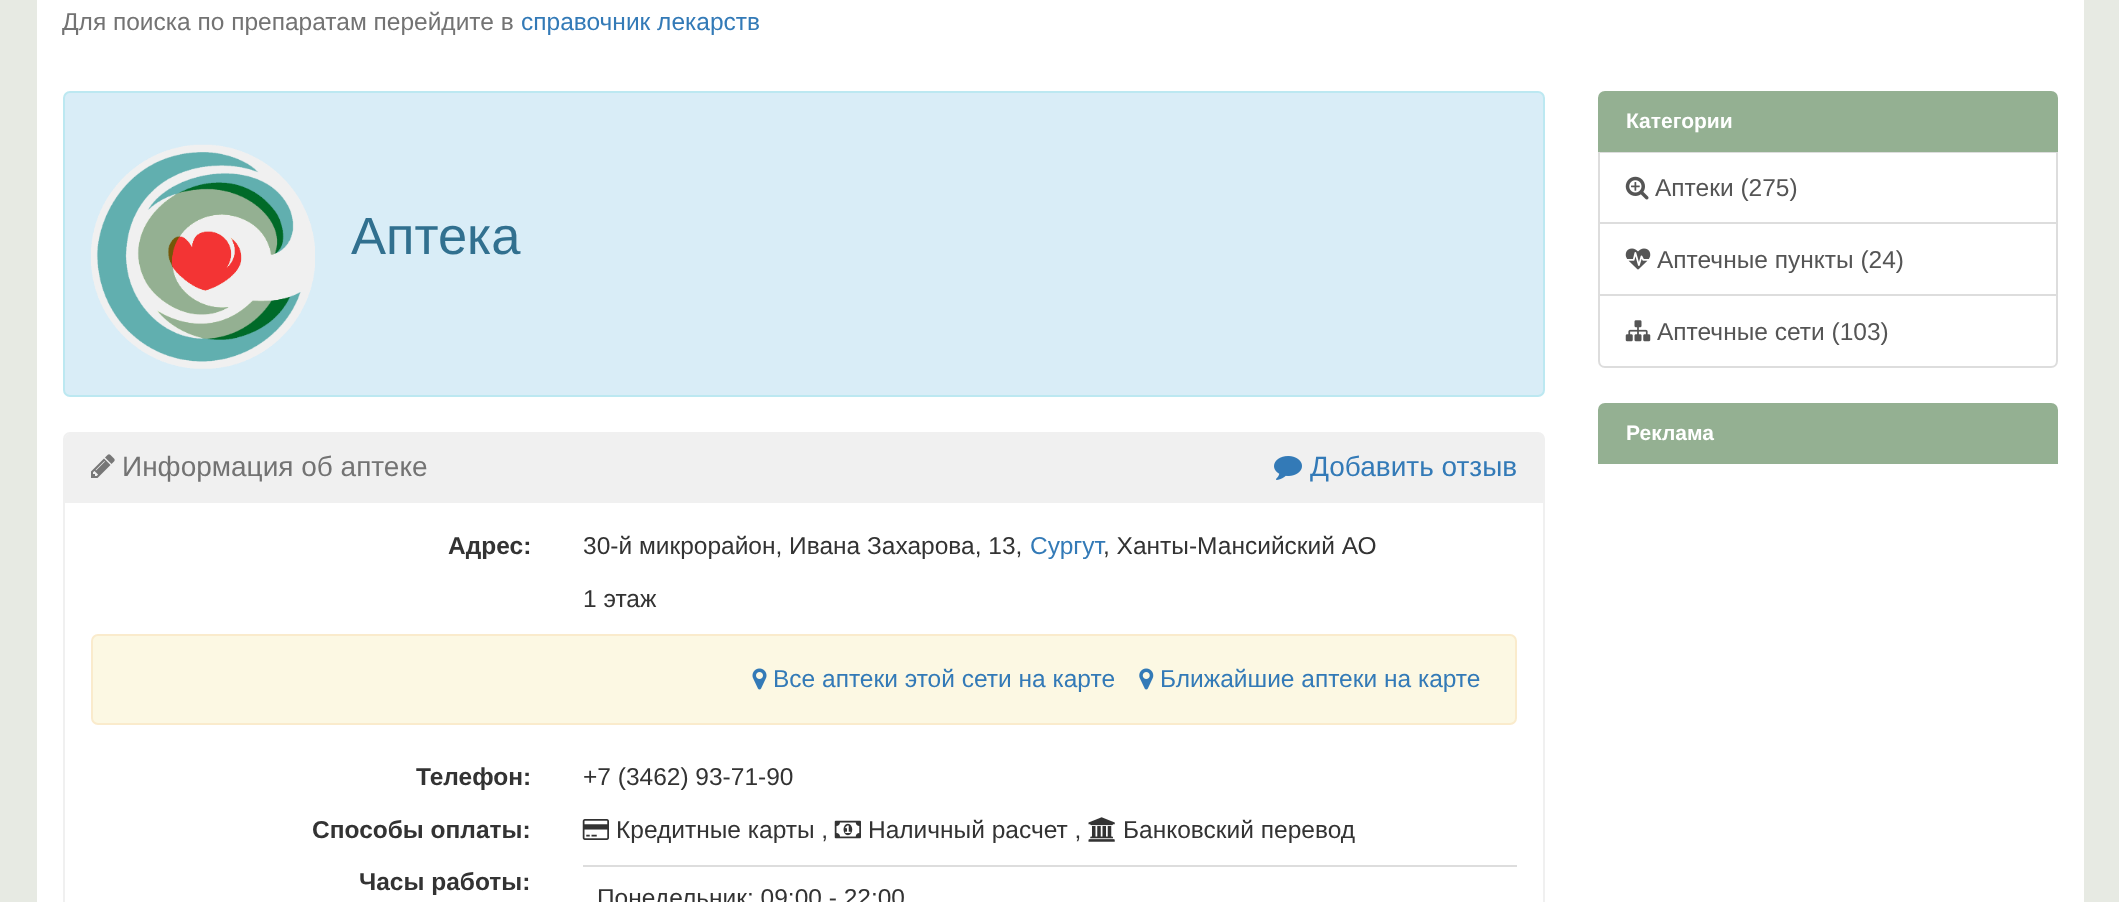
<svg xmlns="http://www.w3.org/2000/svg" width="2119" height="902" viewBox="0 0 2119 902">
  <style>
    .t1 { font: 24.5px Liberation Sans; fill: #737373; }
    .t2 { font: 24.5px Liberation Sans; fill: #337ab7; }
    .t3 { font: 52.5px Liberation Sans; fill: #31708f; }
    .t4 { font: 28px Liberation Sans; fill: #737373; }
    .t5 { font: 28px Liberation Sans; fill: #337ab7; }
    .t6 { font: bold 24.5px Liberation Sans; fill: #333; }
    .t7 { font: 24.5px Liberation Sans; fill: #333; }
    .t8 { font: bold 21px Liberation Sans; fill: #fff; }
    .t9 { font: 24.5px Liberation Sans; fill: #555; }
  </style>
  <rect width="100%" height="100%" fill="#e7eae3"/>
  <rect x="37" y="0" width="2047" height="902" fill="#fff"/>
  <text x="62" y="30" class="t1">Для поиска по препаратам перейдите в</text>
  <text x="521" y="30" class="t2">справочник лекарств</text>
  <rect x="64" y="92" width="1480" height="304" rx="6" fill="#d9edf7" stroke="#bce8f1" stroke-width="2"/>
  <image x="91" y="144" width="224" height="225" href="images/1.png"/>
  <text x="351" y="254" class="t3">Аптека</text>
  <rect x="64" y="433" width="1480" height="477" rx="6" fill="none" stroke="#f0f0f0" stroke-width="2"/>
  <path d="M70 434H1539C1542 434 1544 436 1544 439V502H65V439C65 436 67 434 70 434Z" fill="#f0f0f0"/>
  <rect x="65" y="502" width="1479" height="1" fill="#f0f0f0"/>
  <image x="91" y="454" width="24" height="24" href="images/2.png"/>
  <text x="122" y="476" class="t4">Информация об аптеке</text>
  <image x="1274" y="456" width="28" height="24" href="images/3.png"/>
  <text x="1310" y="476" class="t5">Добавить отзыв</text>
  <text x="448" y="554" class="t6">Адрес:</text>
  <text x="583" y="554" class="t7">30-й микрорайон, Ивана Захарова, 13,</text>
  <text x="1030" y="554" class="t2">Сургут</text>
  <text x="1103" y="554" class="t7">, Ханты-Мансийский АО</text>
  <text x="583" y="607" class="t7">1 этаж</text>
  <rect x="92" y="635" width="1424" height="89" rx="6" fill="#fcf8e3" stroke="#faebcc" stroke-width="2"/>
  <image x="752" y="668" width="15" height="22" href="images/4.png"/>
  <text x="773" y="687" class="t2">Все аптеки этой сети на карте</text>
  <image x="1139" y="668" width="15" height="22" href="images/5.png"/>
  <text x="1160" y="687" class="t2">Ближайшие аптеки на карте</text>
  <text x="416" y="785" class="t6">Телефон:</text>
  <text x="583" y="785" class="t7">+7 (3462) 93-71-90</text>
  <text x="312" y="838" class="t6">Способы оплаты:</text>
  <image x="582" y="819" width="27" height="21" href="images/6.png"/>
  <text x="616" y="838" class="t7">Кредитные карты ,</text>
  <image x="834" y="820" width="27" height="19" href="images/7.png"/>
  <text x="868" y="838" class="t7">Наличный расчет ,</text>
  <image x="1088" y="817" width="27" height="25" href="images/8.png"/>
  <text x="1123" y="838" class="t7">Банковский перевод</text>
  <text x="359" y="890" class="t6">Часы работы:</text>
  <rect x="583" y="865" width="934" height="2" fill="#ddd"/>
  <text x="597" y="906" class="t7">Понедельник: 09:00 - 22:00</text>
  <rect x="1599" y="152" width="458" height="71" fill="none" stroke="#ddd" stroke-width="2"/>
  <path d="M1605 92H2051C2054.5 92 2057 94.5 2057 98V151H1599V98C1599 94.5 1601.5 92 1605 92Z" fill="#94b092" stroke="#94b092" stroke-width="2"/>
  <text x="1626" y="128" class="t8">Категории</text>
  <image x="1625" y="176" width="24" height="24" href="images/9.png"/>
  <text x="1655" y="196" class="t9">Аптеки (275)</text>
  <rect x="1599" y="223" width="458" height="72" fill="none" stroke="#ddd" stroke-width="2"/>
  <image x="1625" y="248" width="26" height="22" href="images/10.png"/>
  <text x="1657" y="268" class="t9">Аптечные пункты (24)</text>
  <path d="M1599 295H2057V361C2057 364.5 2054.5 367 2051 367H1605C1601.5 367 1599 364.5 1599 361Z" fill="#fff" stroke="#ddd" stroke-width="2"/>
  <image x="1625" y="320" width="26" height="22" href="images/11.png"/>
  <text x="1657" y="340" class="t9">Аптечные сети (103)</text>
  <path d="M1605 404H2051C2054.5 404 2057 406.5 2057 410V463H1599V410C1599 406.5 1601.5 404 1605 404Z" fill="#94b092" stroke="#94b092" stroke-width="2"/>
  <text x="1626" y="440" class="t8">Реклама</text>
</svg>
